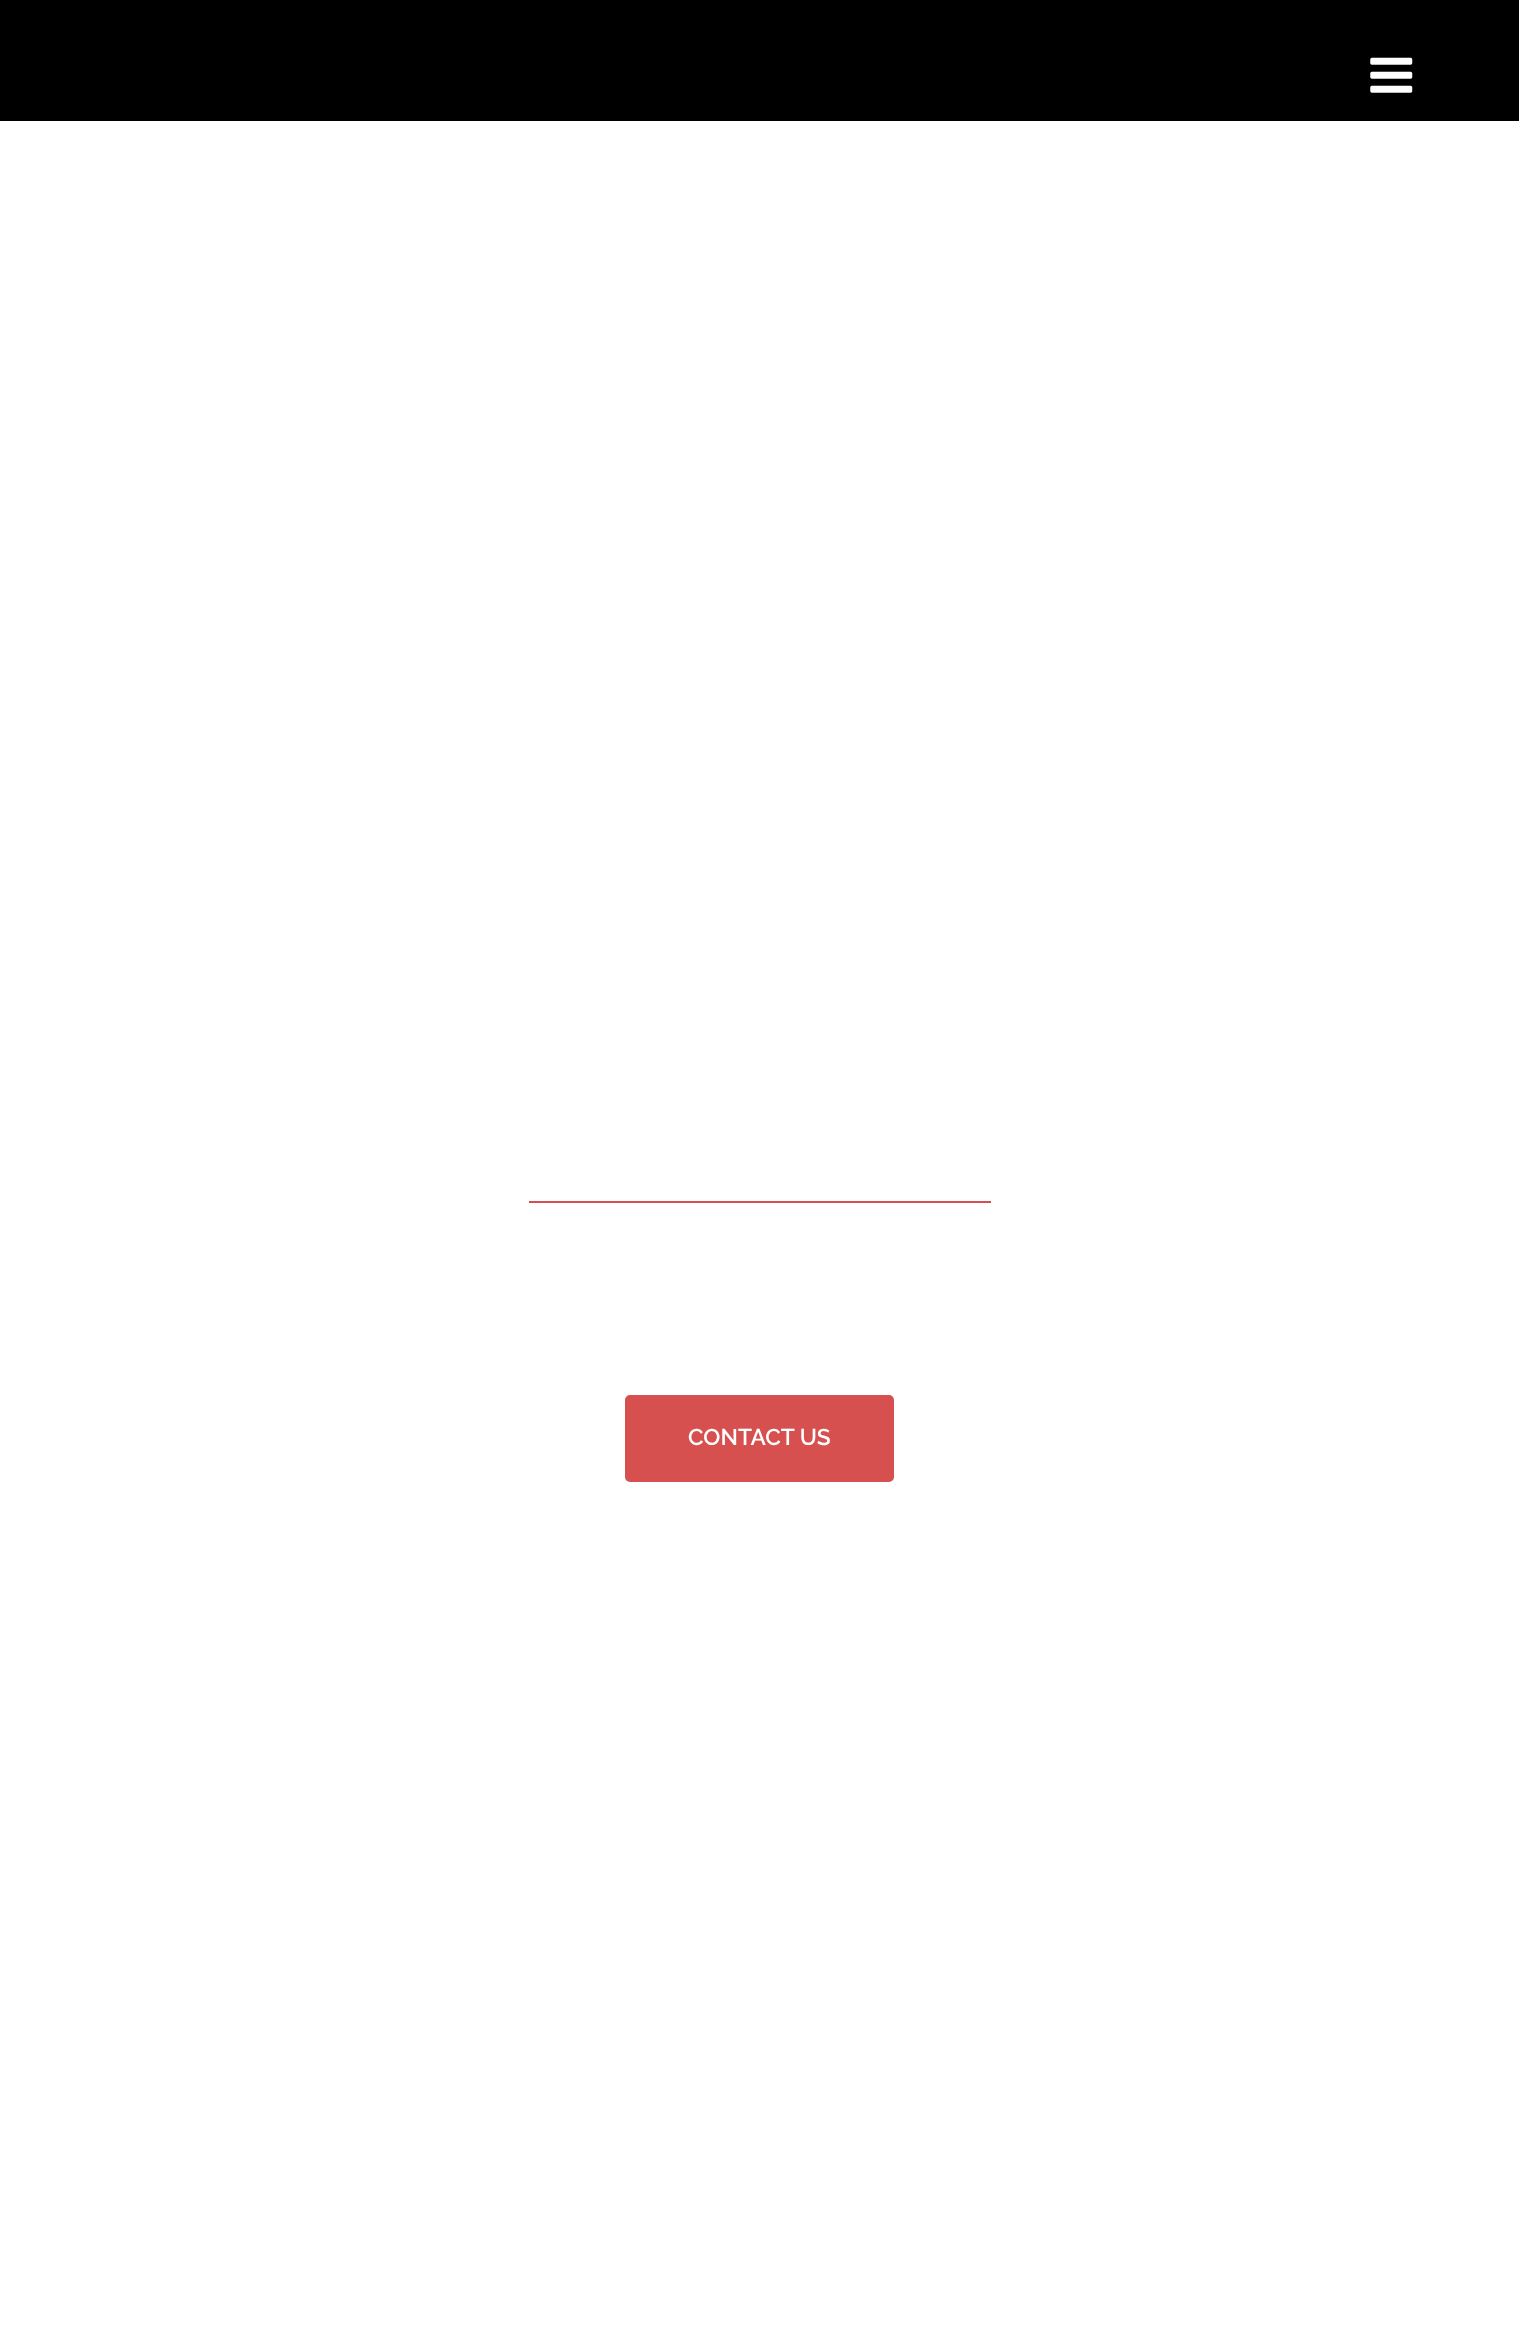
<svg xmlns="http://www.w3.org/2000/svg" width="1519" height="2330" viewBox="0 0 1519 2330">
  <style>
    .t1 { font: 600 22.75px Raleway; fill: #fff; }
  </style>
  <rect width="100%" height="100%" fill="#fff"/>
  <rect x="0" y="0" width="1519" height="121" fill="#000"/>
  <image x="1370" y="57" width="43" height="36" href="images/1.png"/>
  <rect x="529" y="1201" width="462" height="2" fill="#d65050"/>
  <rect x="626" y="1396" width="267" height="85" rx="4" fill="#d65050" stroke="#d65050" stroke-width="2"/>
  <text x="688" y="1445" class="t1">CONTACT US</text>
</svg>
